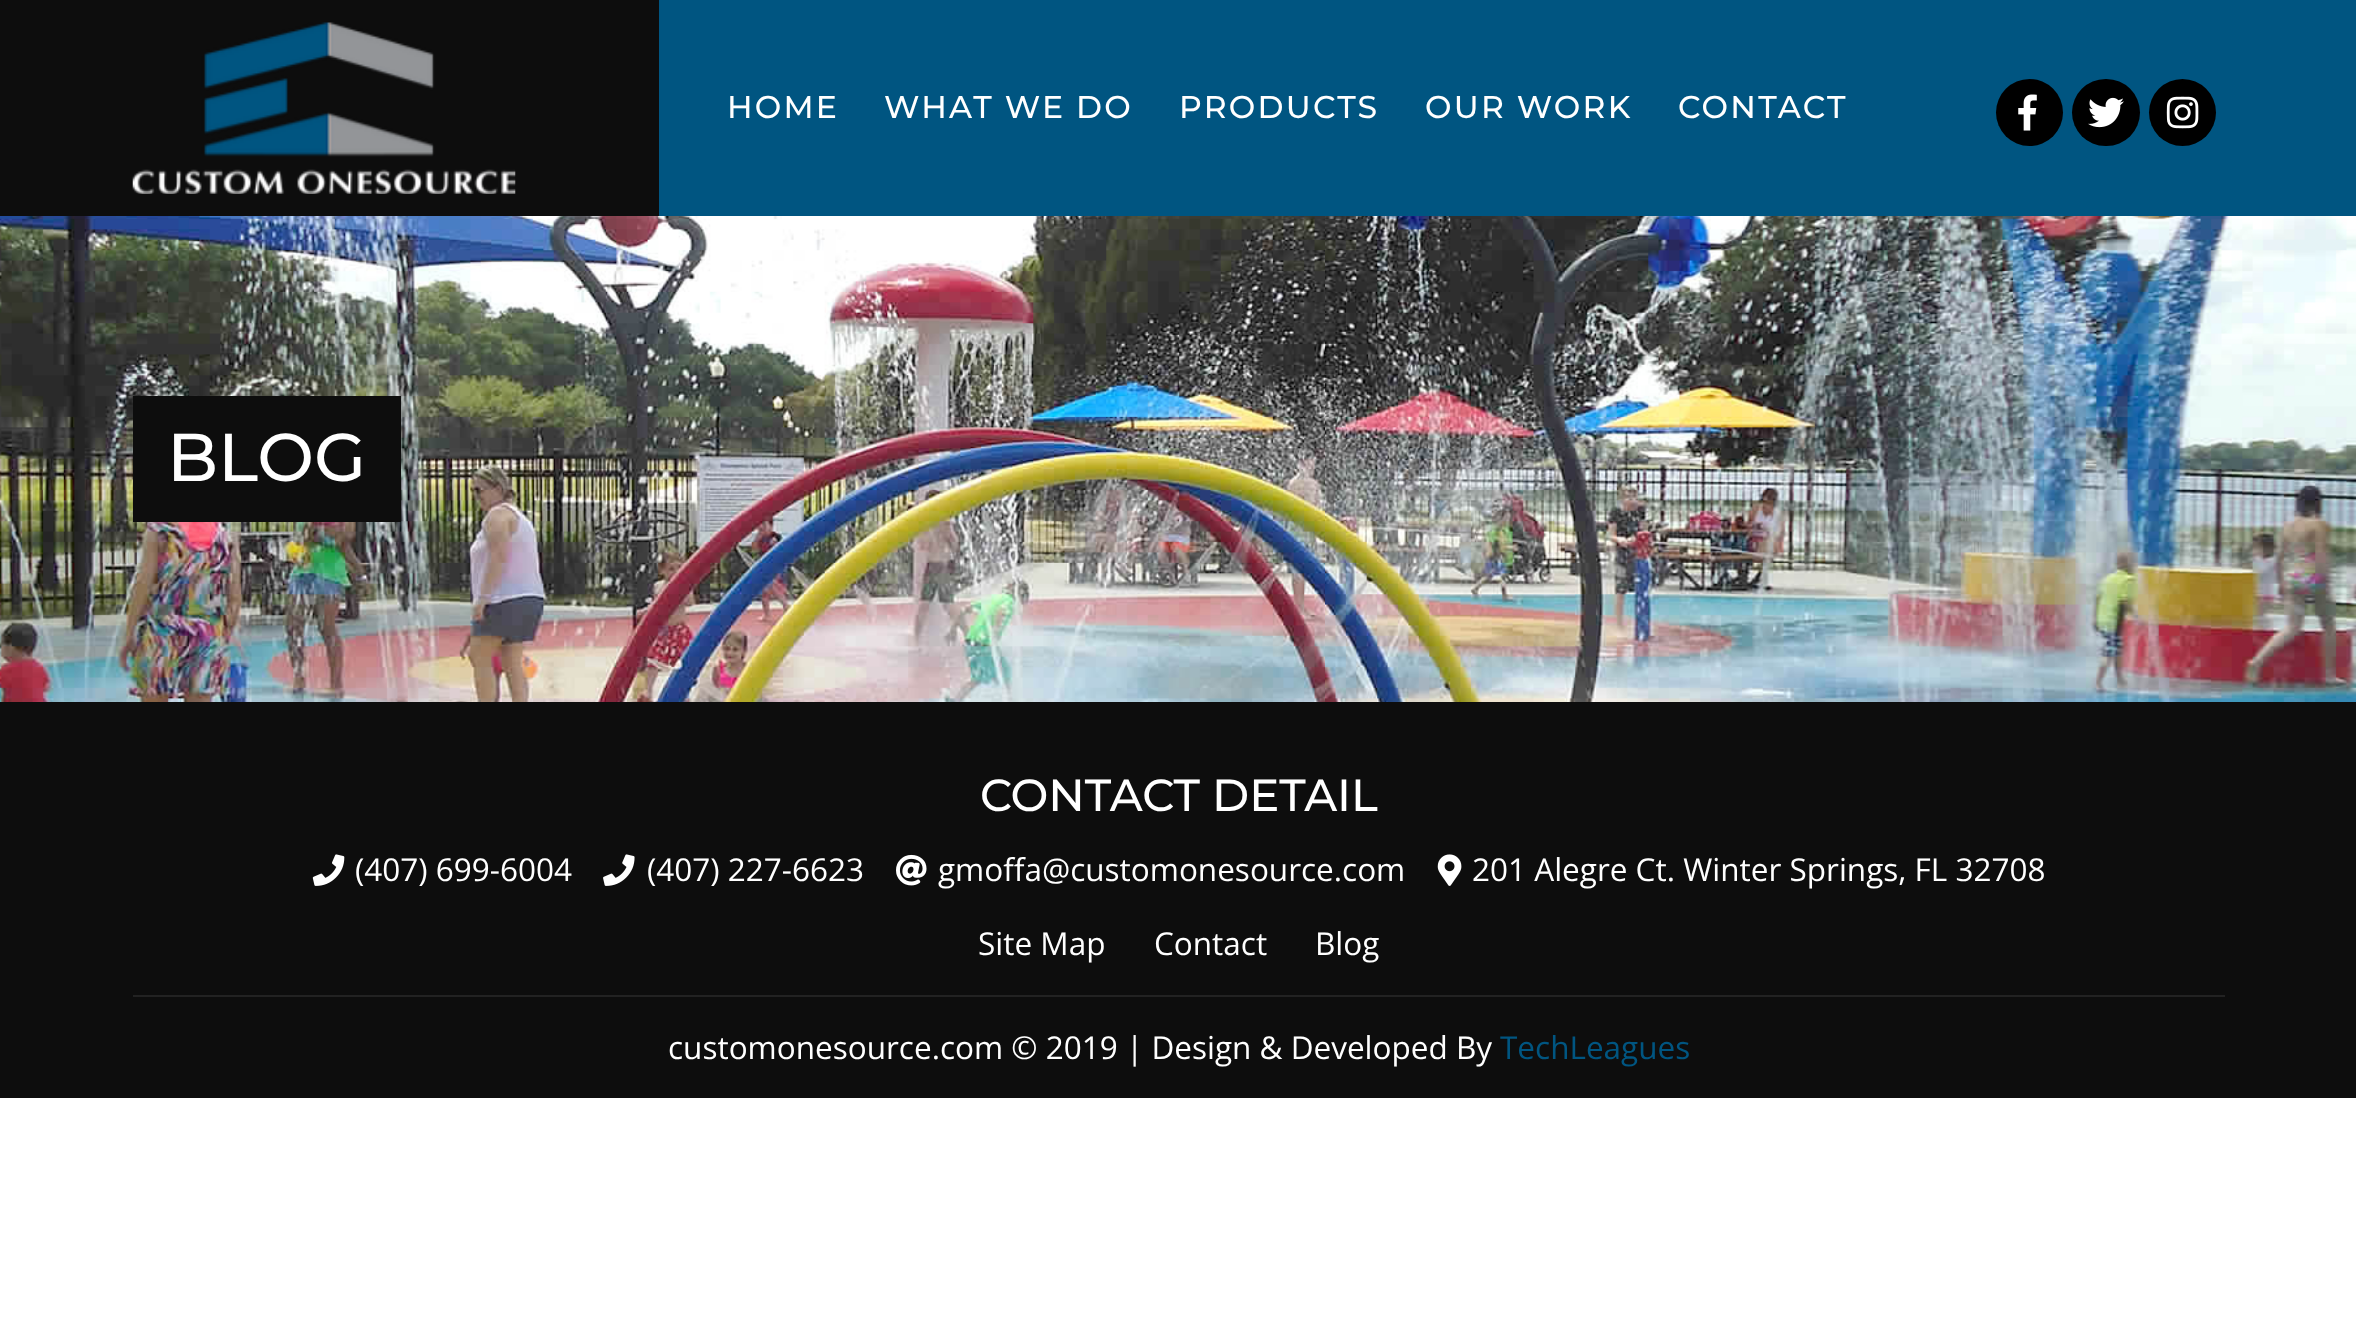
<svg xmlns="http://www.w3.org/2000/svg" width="2356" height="1317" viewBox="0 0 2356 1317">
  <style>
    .t1 { font: 500 31.5px Montserrat; letter-spacing: 2.25px; fill: #fff; }
    .t2 { font: 500 67.5px Montserrat; fill: #fff; }
    .t3 { font: 500 45px Montserrat; fill: #fff; }
    .t4 { font: 31.5px Open Sans; fill: #fff; }
    .t5 { font: 31.5px Open Sans; fill: #005581; }
  </style>
  <rect width="100%" height="100%" fill="#fff"/>
  <rect x="659" y="0" width="1697" height="216" fill="#005581"/>
  <rect x="0" y="0" width="659" height="216" fill="#0d0d0d"/>
  <image x="132" y="22" width="384" height="172" href="images/1.png"/>
  <text x="727" y="118" class="t1">HOME</text>
  <text x="884" y="118" class="t1">WHAT WE DO</text>
  <text x="1179" y="118" class="t1">PRODUCTS</text>
  <text x="1425" y="118" class="t1">OUR WORK</text>
  <text x="1678" y="118" class="t1">CONTACT</text>
  <circle cx="2029.5" cy="112.5" r="33.5" fill="#000"/>
  <image x="2018" y="94" width="19" height="37" href="images/2.png"/>
  <rect x="2072" y="79" width="68" height="67" rx="33.5" fill="#000"/>
  <image x="2088" y="97" width="36" height="31" href="images/3.png"/>
  <circle cx="2182.5" cy="112.5" r="33.5" fill="#000"/>
  <image x="2166" y="96" width="33" height="33" href="images/4.png"/>
  <image x="0" y="216" width="2356" height="486" href="images/5.png"/>
  <rect x="133" y="396" width="268" height="126" fill="#0d0d0d"/>
  <text x="167" y="481" class="t2">BLOG</text>
  <rect x="0" y="702" width="2356" height="396" fill="#0d0d0d"/>
  <text x="980" y="811" class="t3">CONTACT DETAIL</text>
  <image x="312" y="854" width="33" height="32" href="images/6.png"/>
  <text x="355" y="881" class="t4">(407) 699-6004</text>
  <image x="603" y="854" width="32" height="32" href="images/7.png"/>
  <text x="647" y="881" class="t4">(407) 227-6623</text>
  <image x="896" y="854" width="31" height="32" href="images/8.png"/>
  <text x="938" y="881" class="t4">gmoffa@customonesource.com</text>
  <image x="1437" y="854" width="25" height="32" href="images/9.png"/>
  <text x="1472" y="881" class="t4">201 Alegre Ct. Winter Springs, FL 32708</text>
  <text x="978" y="955" class="t4">Site Map</text>
  <text x="1154" y="955" class="t4">Contact</text>
  <text x="1315" y="955" class="t4">Blog</text>
  <rect x="133" y="995" width="2092" height="2" fill="#222"/>
  <text x="668" y="1059" class="t4">customonesource.com © 2019 | Design &amp; Developed By</text>
  <text x="1500" y="1059" class="t5">TechLeagues</text>
</svg>
